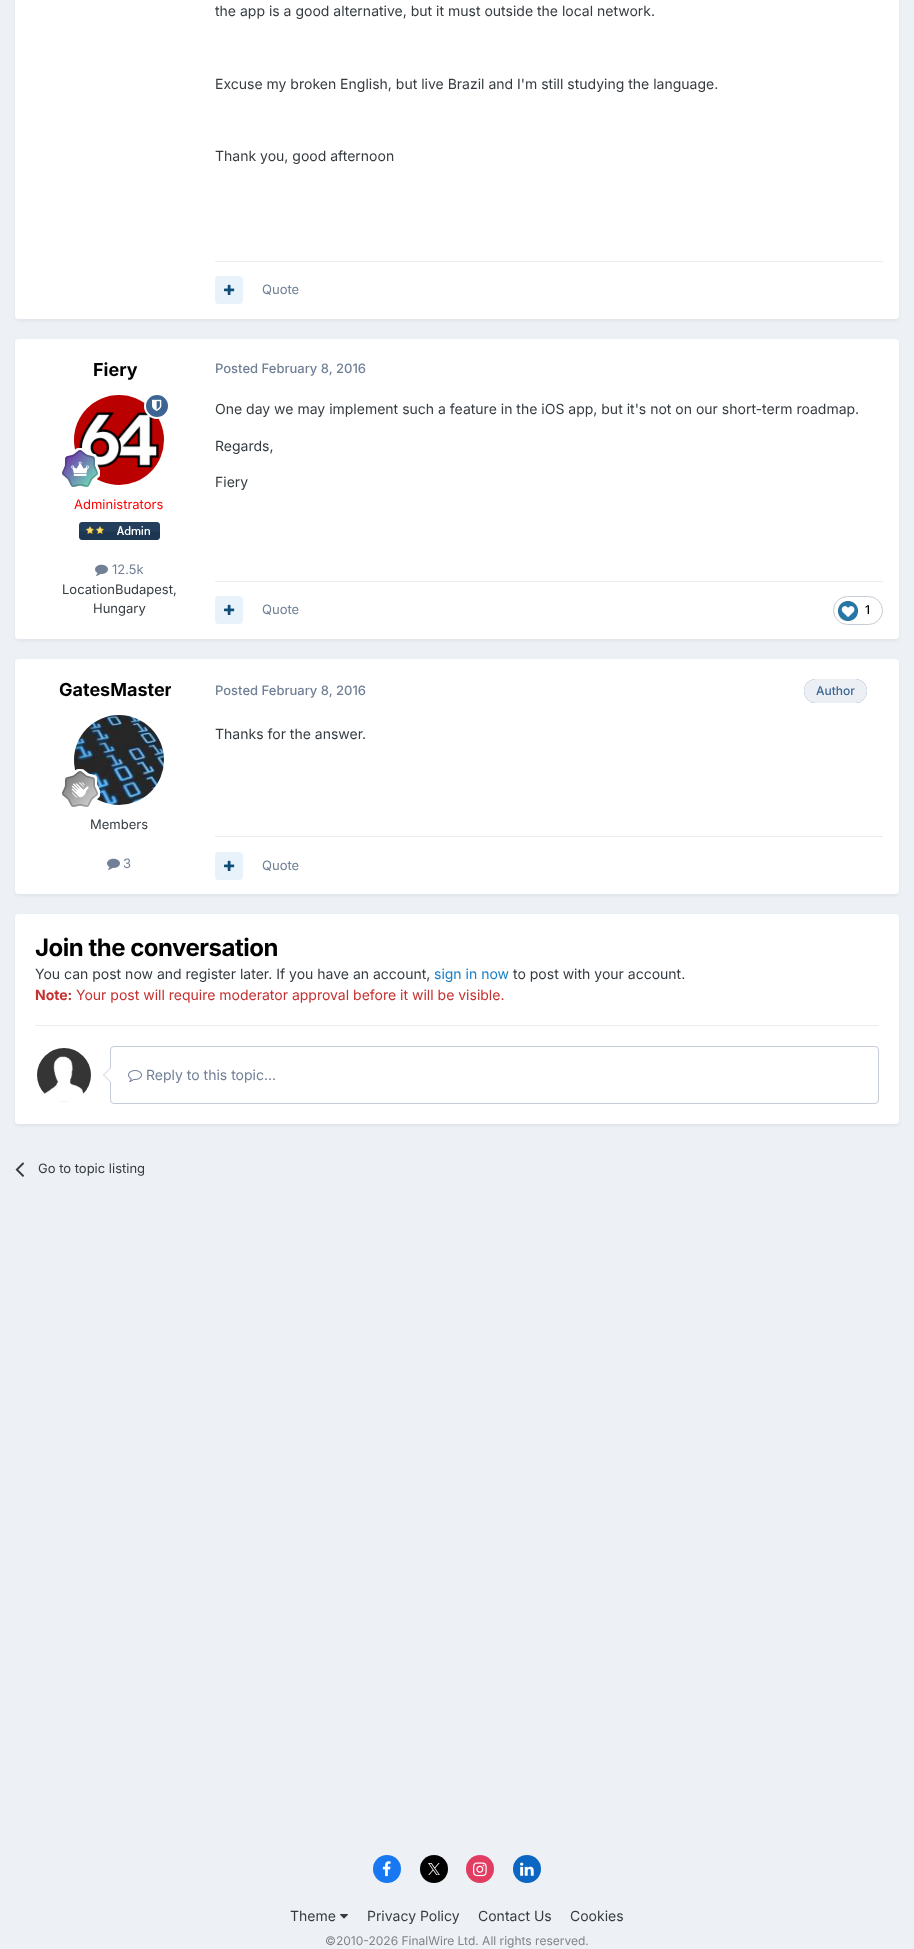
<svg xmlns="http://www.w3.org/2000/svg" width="914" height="1949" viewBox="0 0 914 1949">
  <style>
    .t1 { font: 14px Inter; fill: #353c41; }
    .t2 { font: 13px Inter; fill: #718096; }
    .t3 { font: bold 18px Inter; fill: #000; }
    .t4 { font: 13px Inter; fill: #f00; }
    .t5 { font: 13px Inter; fill: #353c41; }
    .t6 { font: 500 13px Inter; fill: #718096; }
    .t7 { font: 500 12px Inter; fill: #000; }
    .t8 { font: 500 12px Inter; fill: #3d6594; }
    .t9 { font: bold 24px Inter; letter-spacing: -0.5px; fill: #000; }
    .t10 { font: 14px Inter; fill: #177ec9; }
    .t11 { font: bold 14px Inter; fill: #c53030; }
    .t12 { font: 14px Inter; fill: #c53030; }
    .t13 { font: 14px Inter; fill: #718096; }
    .t14 { font: 12px Inter; fill: #7f8489; }
  </style>
  <defs>
    <clipPath id="clip1"><rect x="59" y="679" width="112" height="21"/></clipPath>
  </defs>
  <rect width="100%" height="100%" fill="#edf0f4"/>
  <rect x="16" y="-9" width="882" height="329" rx="3" fill="#2d37481a" filter="blur(2px)"/>
  <rect x="15" y="-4" width="884" height="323" rx="4" fill="#fff"/>
  <text x="215" y="16" class="t1">the app is a good alternative, but it must outside the local network.</text>
  <text x="215" y="89" class="t1">Excuse my broken English, but live Brazil and I'm still studying the language.</text>
  <text x="215" y="161" class="t1">Thank you, good afternoon</text>
  <rect x="215" y="261" width="668" height="1" fill="#ebecec"/>
  <rect x="215" y="276" width="28" height="28" rx="4" fill="#e8f2fa"/>
  <image x="224" y="284" width="11" height="11" href="images/1.png"/>
  <text x="262" y="294" class="t2">Quote</text>
  <rect x="16" y="342" width="882" height="298" rx="3" fill="#2d37481a" filter="blur(2px)"/>
  <rect x="15" y="339" width="884" height="300" rx="4" fill="#fff"/>
  <text x="93" y="376" class="t3">Fiery</text>
  <image x="74" y="395" width="90" height="90" href="images/3.png"/>
  <circle cx="157" cy="406" r="12" fill="#3d6594" stroke="#fff" stroke-width="2"/>
  <image x="152" y="399" width="10" height="12" href="images/2.png"/>
  <image x="62" y="448" width="38" height="39" href="images/4.png"/>
  <text x="74" y="509" class="t4">Administrators</text>
  <image x="79" y="522" width="81" height="18" href="images/5.png"/>
  <image x="95" y="564" width="13" height="12" href="images/6.png"/>
  <text x="112" y="574" class="t2">12.5k</text>
  <text x="62" y="594" class="t5">LocationBudapest,</text>
  <text x="93" y="613" class="t5">Hungary</text>
  <text x="215" y="373" class="t6">Posted February 8, 2016</text>
  <text x="215" y="414" class="t1">One day we may implement such a feature in the iOS app, but it's not on our short-term roadmap.</text>
  <text x="215" y="451" class="t1">Regards,</text>
  <text x="215" y="487" class="t1">Fiery</text>
  <rect x="215" y="581" width="668" height="1" fill="#ebecec"/>
  <rect x="215" y="596" width="28" height="28" rx="4" fill="#e8f2fa"/>
  <image x="224" y="604" width="11" height="11" href="images/1.png"/>
  <text x="262" y="614" class="t2">Quote</text>
  <rect x="833.5" y="596.5" width="49" height="28" rx="14" fill="none" stroke="#c6ccd5"/>
  <image x="838" y="601" width="20" height="20" href="images/7.png"/>
  <text x="865" y="614" class="t7">1</text>
  <rect x="16" y="662" width="882" height="233" rx="3" fill="#2d37481a" filter="blur(2px)"/>
  <rect x="15" y="659" width="884" height="235" rx="4" fill="#fff"/>
  <g clip-path="url(#clip1)">
    <text x="59" y="696" class="t3">GatesMaster</text>
  </g>
  <image x="74" y="715" width="90" height="90" href="images/8.png"/>
  <image x="62" y="769" width="38" height="38" href="images/9.png"/>
  <text x="90" y="829" class="t5">Members</text>
  <image x="107" y="858" width="13" height="12" href="images/6.png"/>
  <text x="123" y="868" class="t2">3</text>
  <text x="215" y="695" class="t6">Posted February 8, 2016</text>
  <rect x="804" y="679" width="63" height="24" rx="12" fill="#3d6594"/>
  <rect x="804" y="679" width="63" height="24" rx="12" fill="#ffffffe6"/>
  <text x="816" y="695" class="t8">Author</text>
  <text x="215" y="739" class="t1">Thanks for the answer.</text>
  <rect x="215" y="836" width="668" height="1" fill="#ebecec"/>
  <rect x="215" y="852" width="28" height="28" rx="4" fill="#e8f2fa"/>
  <image x="224" y="860" width="11" height="11" href="images/1.png"/>
  <text x="262" y="870" class="t2">Quote</text>
  <rect x="16" y="917" width="882" height="208" rx="3" fill="#2d37481a" filter="blur(2px)"/>
  <rect x="15" y="914" width="884" height="210" rx="4" fill="#fff"/>
  <rect x="35" y="1025" width="844" height="1" fill="#eaecef"/>
  <text x="35" y="956" class="t9">Join the conversation</text>
  <text x="35" y="979" class="t1">You can post now and register later. If you have an account,</text>
  <text x="434" y="979" class="t10">sign in now</text>
  <text x="513" y="979" class="t1">to post with your account.</text>
  <text x="35" y="1000" class="t11">Note:</text>
  <text x="76" y="1000" class="t12">Your post will require moderator approval before it will be visible.</text>
  <image x="37" y="1048" width="54" height="54" href="images/10.png"/>
  <rect x="110.5" y="1046.5" width="768" height="57" rx="3.5" fill="none" stroke="#c6ccd5"/>
  <path d="M110 1068V1082L103 1075Z" fill="#c6ccd5"/>
  <path d="M111 1068V1082L104 1075Z" fill="#fff"/>
  <image x="128" y="1070" width="14" height="12" href="images/11.png"/>
  <text x="146" y="1080" class="t13">Reply to this topic...</text>
  <image x="15" y="1162" width="10" height="15" href="images/12.png"/>
  <text x="38" y="1173" class="t5">Go to topic listing</text>
  <circle cx="387" cy="1869" r="14" fill="#1778f2"/>
  <image x="382" y="1861" width="9" height="16" href="images/13.png"/>
  <circle cx="434" cy="1869" r="14" fill="#000"/>
  <image x="428" y="1863" width="12" height="12" href="images/14.png"/>
  <circle cx="480" cy="1869" r="14" fill="#e13d62"/>
  <image x="473" y="1862" width="14" height="15" href="images/15.png"/>
  <circle cx="527" cy="1869" r="14" fill="#0a66c2"/>
  <image x="520" y="1862" width="14" height="14" href="images/16.png"/>
  <text x="290" y="1921" class="t1">Theme</text>
  <image x="340" y="1914" width="8" height="5" href="images/17.png"/>
  <text x="367" y="1921" class="t1">Privacy Policy</text>
  <text x="478" y="1921" class="t1">Contact Us</text>
  <text x="570" y="1921" class="t1">Cookies</text>
  <text x="325" y="1945" class="t14">©2010-2026 FinalWire Ltd. All rights reserved.</text>
</svg>
